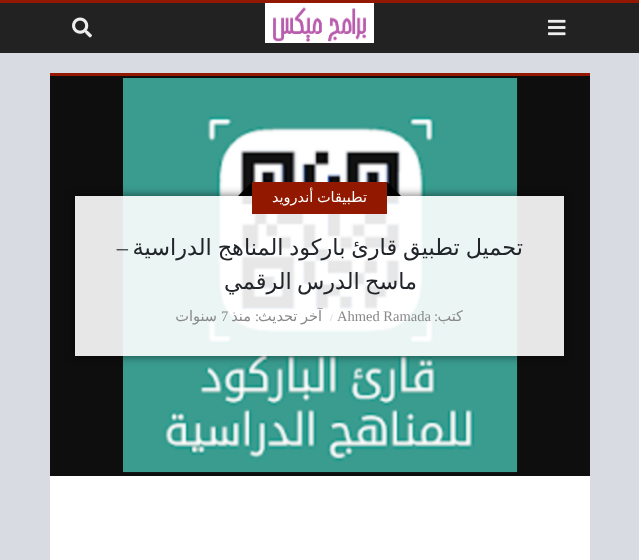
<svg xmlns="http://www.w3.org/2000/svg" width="639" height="560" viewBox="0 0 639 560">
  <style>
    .t1 { font: 14.5px DejaVu Sans; direction: rtl; fill: #fff; }
    .t2 { font: 14.5px DejaVu Sans; direction: rtl; fill: #888; }
    .t3 { font: 14.5px Liberation Serif; fill: #888; }
    .t4 { font: 10px Liberation Serif; fill: #c4c4c4; }
    .t5 { font: 22.4px DejaVu Sans; direction: rtl; fill: #212529; }
    .t6 { font: 22.4px Liberation Serif; direction: rtl; fill: #212529; }
  </style>
  <defs>
    <clipPath id="clip1"><path d="M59 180H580V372H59ZM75 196H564V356H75Z" clip-rule="evenodd"/></clipPath>
  </defs>
  <rect width="100%" height="100%" fill="#d8dbe1"/>
  <rect x="0" y="3" width="639" height="50" fill="#222"/>
  <rect x="0" y="0" width="639" height="3" fill="#931800"/>
  <image x="548" y="19" width="18" height="17" href="images/1.png"/>
  <image x="265" y="3" width="109" height="40" href="images/2.png"/>
  <image x="72" y="17" width="20" height="21" href="images/3.png"/>
  <rect x="50" y="476" width="540" height="84" fill="#fff"/>
  <rect x="50" y="73" width="540" height="3" fill="#931800"/>
  <image x="50" y="76" width="540" height="400" href="images/4.png"/>
  <g clip-path="url(#clip1)">
    <rect x="75" y="196" width="489" height="160" fill="#00000099" filter="blur(5px)"/>
  </g>
  <rect x="75" y="196" width="489" height="160" fill="#ffffffe6"/>
  <rect x="252" y="182" width="135" height="32" fill="#931800"/>
  <path d="M401 196H387L394 189Z" fill="#000"/>
  <path d="M387 196V182L394 189Z" fill="#000"/>
  <text x="367" y="202" word-spacing="-1" class="t1">تطبيقات أندرويد</text>
  <path d="M252 182V196L245 189Z" fill="#000"/>
  <path d="M252 196H238L245 189Z" fill="#000"/>
  <text x="463" y="321" class="t2">كتب</text>
  <text x="434" y="321" class="t3">:</text>
  <text x="337" y="321" class="t3">Ahmed Ramada</text>
  <text x="330" y="321" class="t4">/</text>
  <text x="322" y="321" word-spacing="-1" class="t2">آخر تحديث</text>
  <text x="255" y="321" class="t3">:</text>
  <text x="251" y="321" class="t2">منذ</text>
  <text x="221" y="321" class="t3">7</text>
  <text x="217" y="321" class="t2">سنوات</text>
  <text x="523" y="255" word-spacing="-1.25" class="t5">تحميل تطبيق قارئ باركود المناهج الدراسية</text>
  <text x="128" y="255" class="t6">–</text>
  <text x="417" y="289" word-spacing="-2" class="t5">ماسح الدرس الرقمي</text>
</svg>
